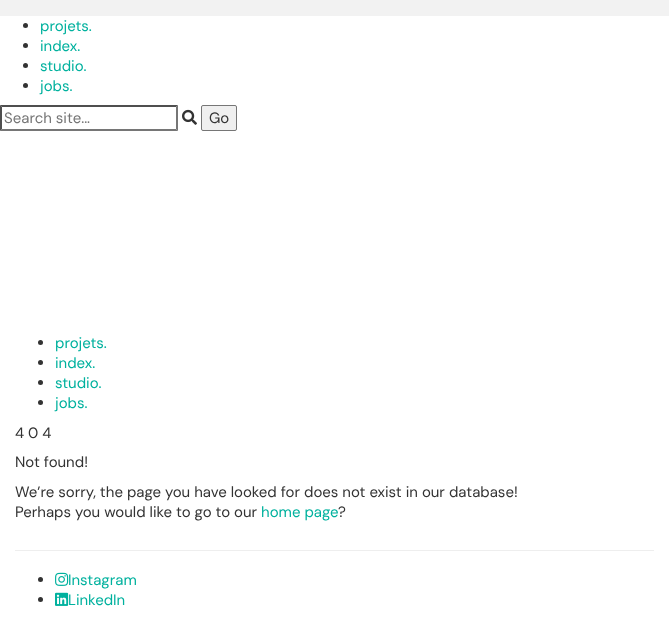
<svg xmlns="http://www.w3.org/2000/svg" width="669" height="631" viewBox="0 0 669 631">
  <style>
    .t1 { font: 15px DM Sans; fill: #00b19e; }
    .t2 { font: 15px DM Sans; fill: #757575; }
    .t3 { font: 15px DM Sans; fill: #333; }
  </style>
  <rect width="100%" height="100%" fill="#fff"/>
  <rect x="0" y="0" width="669" height="16" fill="#f2f2f2"/>
  <circle cx="25.5" cy="25.5" r="2.5" fill="#333"/>
  <text x="40" y="31" class="t1">projets.</text>
  <circle cx="25.5" cy="45.5" r="2.5" fill="#333"/>
  <text x="40" y="51" class="t1">index.</text>
  <circle cx="25.5" cy="65.5" r="2.5" fill="#333"/>
  <text x="40" y="71" class="t1">studio.</text>
  <circle cx="25.5" cy="85.5" r="2.5" fill="#333"/>
  <text x="40" y="91" class="t1">jobs.</text>
  <path d="M0 105H178L176 107H2Z" fill="#4f4f4f"/>
  <path d="M178 105V131L176 129V107Z" fill="#767676"/>
  <path d="M178 131H0L2 129H176Z" fill="#767676"/>
  <path d="M0 131V105L2 107V129Z" fill="#4f4f4f"/>
  <text x="4" y="123" class="t2">Search site...</text>
  <image x="182" y="109" width="15" height="16" href="images/1.png"/>
  <rect x="201.5" y="105.5" width="35" height="25" rx="1.5" fill="#efefef" stroke="#767676"/>
  <text x="209" y="123" class="t3">Go</text>
  <circle cx="40.5" cy="342.5" r="2.5" fill="#333"/>
  <text x="55" y="348" class="t1">projets.</text>
  <circle cx="40.5" cy="362.5" r="2.5" fill="#333"/>
  <text x="55" y="368" class="t1">index.</text>
  <circle cx="40.5" cy="382.5" r="2.5" fill="#333"/>
  <text x="55" y="388" class="t1">studio.</text>
  <circle cx="40.5" cy="402.5" r="2.5" fill="#333"/>
  <text x="55" y="408" class="t1">jobs.</text>
  <text x="15" y="438" class="t3">4 0 4</text>
  <text x="15" y="467" class="t3">Not found!</text>
  <text x="15" y="497" class="t3">We’re sorry, the page you have looked for does not exist in our database!</text>
  <text x="15" y="517" class="t3">Perhaps you would like to go to our</text>
  <text x="261" y="517" class="t1">home page</text>
  <text x="338" y="517" class="t3">?</text>
  <rect x="15" y="550" width="639" height="1" fill="#eee"/>
  <circle cx="40.5" cy="579.5" r="2.5" fill="#333"/>
  <image x="55" y="572" width="14" height="14" href="images/2.png"/>
  <text x="68" y="585" class="t1">Instagram</text>
  <circle cx="40.5" cy="599.5" r="2.5" fill="#333"/>
  <image x="55" y="592" width="14" height="14" href="images/3.png"/>
  <text x="68" y="605" class="t1">LinkedIn</text>
</svg>
